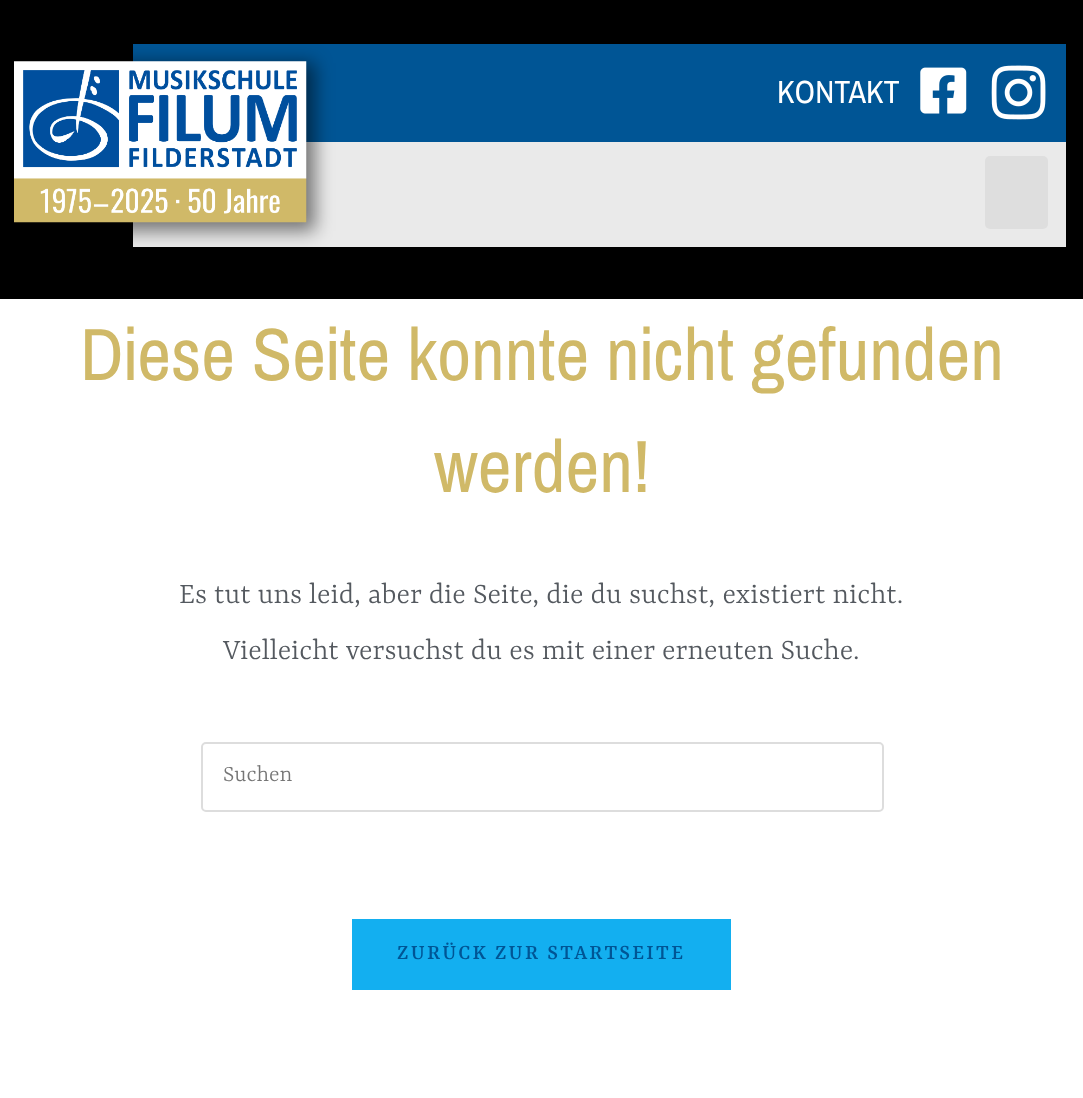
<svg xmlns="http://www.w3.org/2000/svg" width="1083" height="1098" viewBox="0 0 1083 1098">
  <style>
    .t1 { font: 35px Pragati Narrow; fill: #fff; }
    .t2 { font: 80.5px Pragati Narrow; fill: #d0b968; }
    .t3 { font: 300 31.5px Yrsa; fill: #54595f; }
    .t4 { font: 300 24.5px Yrsa; fill: #757575; }
    .t5 { font: 500 22.75px Yrsa; letter-spacing: 2.25px; fill: #005595; }
  </style>
  <rect width="100%" height="100%" fill="#fff"/>
  <rect x="0" y="0" width="1083" height="299" fill="#000"/>
  <rect x="133" y="44" width="933" height="98" fill="#005595"/>
  <rect x="133" y="142" width="933" height="105" fill="#eaeaea"/>
  <rect x="16" y="63" width="299" height="168" fill="#00000080" filter="blur(9px)"/>
  <image x="14" y="61" width="293" height="162" href="images/1.png"/>
  <text x="777" y="103" class="t1">KONTAKT</text>
  <image x="920" y="67" width="47" height="47" href="images/2.png"/>
  <image x="991" y="65" width="55" height="55" href="images/3.png"/>
  <rect x="985" y="156" width="63" height="73" rx="5" fill="#dedede"/>
  <text x="80" y="380" class="t2">Diese Seite konnte nicht gefunden</text>
  <text x="434" y="492" class="t2">werden!</text>
  <text x="179" y="603" class="t3">Es tut uns leid, aber die Seite, die du suchst, existiert nicht.</text>
  <text x="223" y="659" class="t3">Vielleicht versuchst du es mit einer erneuten Suche.</text>
  <rect x="202" y="743" width="681" height="68" rx="4" fill="none" stroke="#ddd" stroke-width="2"/>
  <text x="223" y="781" class="t4">Suchen</text>
  <rect x="352" y="919" width="379" height="71" fill="#13aff0"/>
  <text x="397" y="959" class="t5">ZURÜCK ZUR STARTSEITE</text>
</svg>
